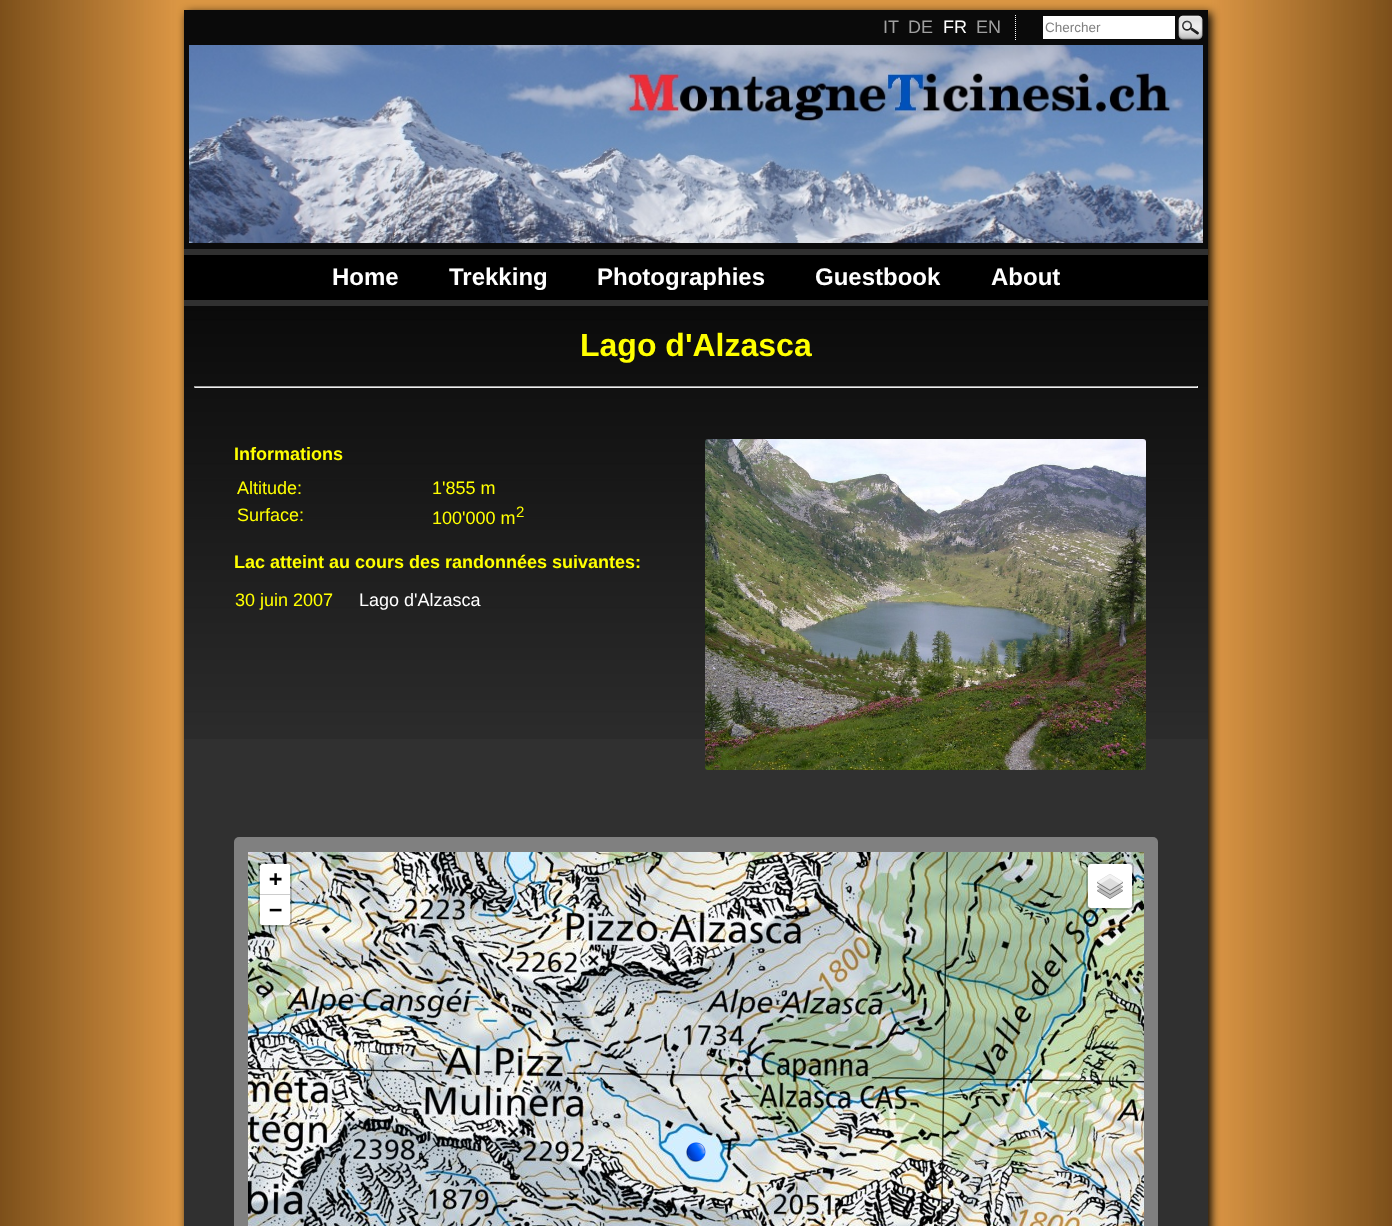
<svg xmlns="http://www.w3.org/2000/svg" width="1392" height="1226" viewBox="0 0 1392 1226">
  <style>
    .t1 { font: 18px Liberation Sans; fill: #a0a0a0; }
    .t2 { font: 18px Liberation Sans; fill: #fff; }
    .t3 { font: 13.5px Liberation Sans; fill: #808080; }
    .t4 { font: bold 24px Liberation Sans; fill: #fff; }
    .t5 { font: bold 32px Liberation Sans; fill: #ff0; }
    .t6 { font: bold 18px Liberation Sans; fill: #ff0; }
    .t7 { font: 18px Liberation Sans; fill: #ff0; }
    .t8 { font: 15px Liberation Sans; fill: #ff0; }
    .t9 { font: bold 22px DejaVu Sans Mono; fill: #000; }
  </style>
  <rect width="100%" height="100%" fill="#fff"/>
  <image x="0" y="0" width="1392" height="1226" href="images/1.png"/>
  <rect x="187" y="13" width="1024" height="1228" fill="#000" filter="blur(5px)"/>
  <rect x="184" y="249" width="1024" height="977" fill="#303030"/>
  <rect x="184" y="10" width="1024" height="239" fill="#0a0a0a"/>
  <path d="M1015.5 15V40" fill="none" stroke="#fff" stroke-dasharray="1 1"/>
  <text x="883" y="33" class="t1">IT</text>
  <text x="908" y="33" class="t1">DE</text>
  <text x="943" y="33" class="t2">FR</text>
  <text x="976" y="33" class="t1">EN</text>
  <rect x="1043" y="16" width="132" height="23" fill="#fff"/>
  <text x="1045" y="32" class="t3">Chercher</text>
  <image x="1178" y="15" width="25" height="25" href="images/2.png"/>
  <image x="189" y="45" width="1014" height="198" href="images/3.png"/>
  <rect x="184" y="255" width="1024" height="45" fill="#000"/>
  <text x="332" y="285" class="t4">Home</text>
  <text x="449" y="285" class="t4">Trekking</text>
  <text x="597" y="285" class="t4">Photographies</text>
  <text x="815" y="285" class="t4">Guestbook</text>
  <text x="991" y="285" class="t4">About</text>
  <image x="184" y="306" width="1024" height="433" href="images/4.png"/>
  <text x="580" y="356" class="t5">Lago d'Alzasca</text>
  <rect x="194" y="386" width="1004" height="1" fill="#9f9f9f"/>
  <rect x="1197" y="386" width="1" height="2" fill="#eee"/>
  <rect x="194" y="387" width="1004" height="1" fill="#eee"/>
  <rect x="194" y="386" width="1" height="2" fill="#9f9f9f"/>
  <text x="234" y="460" class="t6">Informations</text>
  <text x="237" y="494" class="t7">Altitude:</text>
  <text x="432" y="494" class="t7">1'855 m</text>
  <text x="237" y="521" class="t7">Surface:</text>
  <text x="432" y="524" class="t7">100'000 m</text>
  <text x="516" y="517" class="t8">2</text>
  <text x="234" y="568" class="t6">Lac atteint au cours des randonnées suivantes:</text>
  <text x="235" y="606" class="t7">30 juin 2007</text>
  <text x="359" y="606" class="t2">Lago d'Alzasca</text>
  <image x="705" y="439" width="441" height="331" href="images/5.png"/>
  <rect x="234" y="837" width="924" height="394" rx="5" fill="#808080"/>
  <image x="248" y="852" width="11" height="216" href="images/6.png"/>
  <image x="259" y="852" width="256" height="216" href="images/7.png"/>
  <image x="515" y="852" width="256" height="216" href="images/8.png"/>
  <image x="771" y="852" width="256" height="216" href="images/9.png"/>
  <image x="1027" y="852" width="117" height="216" href="images/10.png"/>
  <image x="248" y="1068" width="11" height="158" href="images/11.png"/>
  <image x="259" y="1068" width="256" height="158" href="images/12.png"/>
  <image x="515" y="1068" width="256" height="158" href="images/13.png"/>
  <image x="771" y="1068" width="256" height="158" href="images/14.png"/>
  <image x="1027" y="1068" width="117" height="158" href="images/15.png"/>
  <image x="686" y="1142" width="20" height="20" href="images/16.png"/>
  <rect x="259" y="863" width="32" height="63" rx="3" fill="none" stroke="#00000033" stroke-width="2"/>
  <path d="M262 864H288C289 864 290 865 290 866V895H260V866C260 865 261 864 262 864Z" fill="#fff"/>
  <rect x="260" y="894" width="30" height="1" fill="#ccc"/>
  <text x="269" y="886" class="t9">+</text>
  <path d="M260 895H290V923C290 924 289 925 288 925H262C261 925 260 924 260 923Z" fill="#fff"/>
  <text x="269" y="917" class="t9">−</text>
  <rect x="1088" y="864" width="44" height="44" rx="3" fill="#fff"/>
  <rect x="1087" y="863" width="46" height="46" rx="4" fill="none" stroke="#00000033" stroke-width="2"/>
  <image x="1097" y="874" width="26" height="25" href="images/17.png"/>
</svg>
